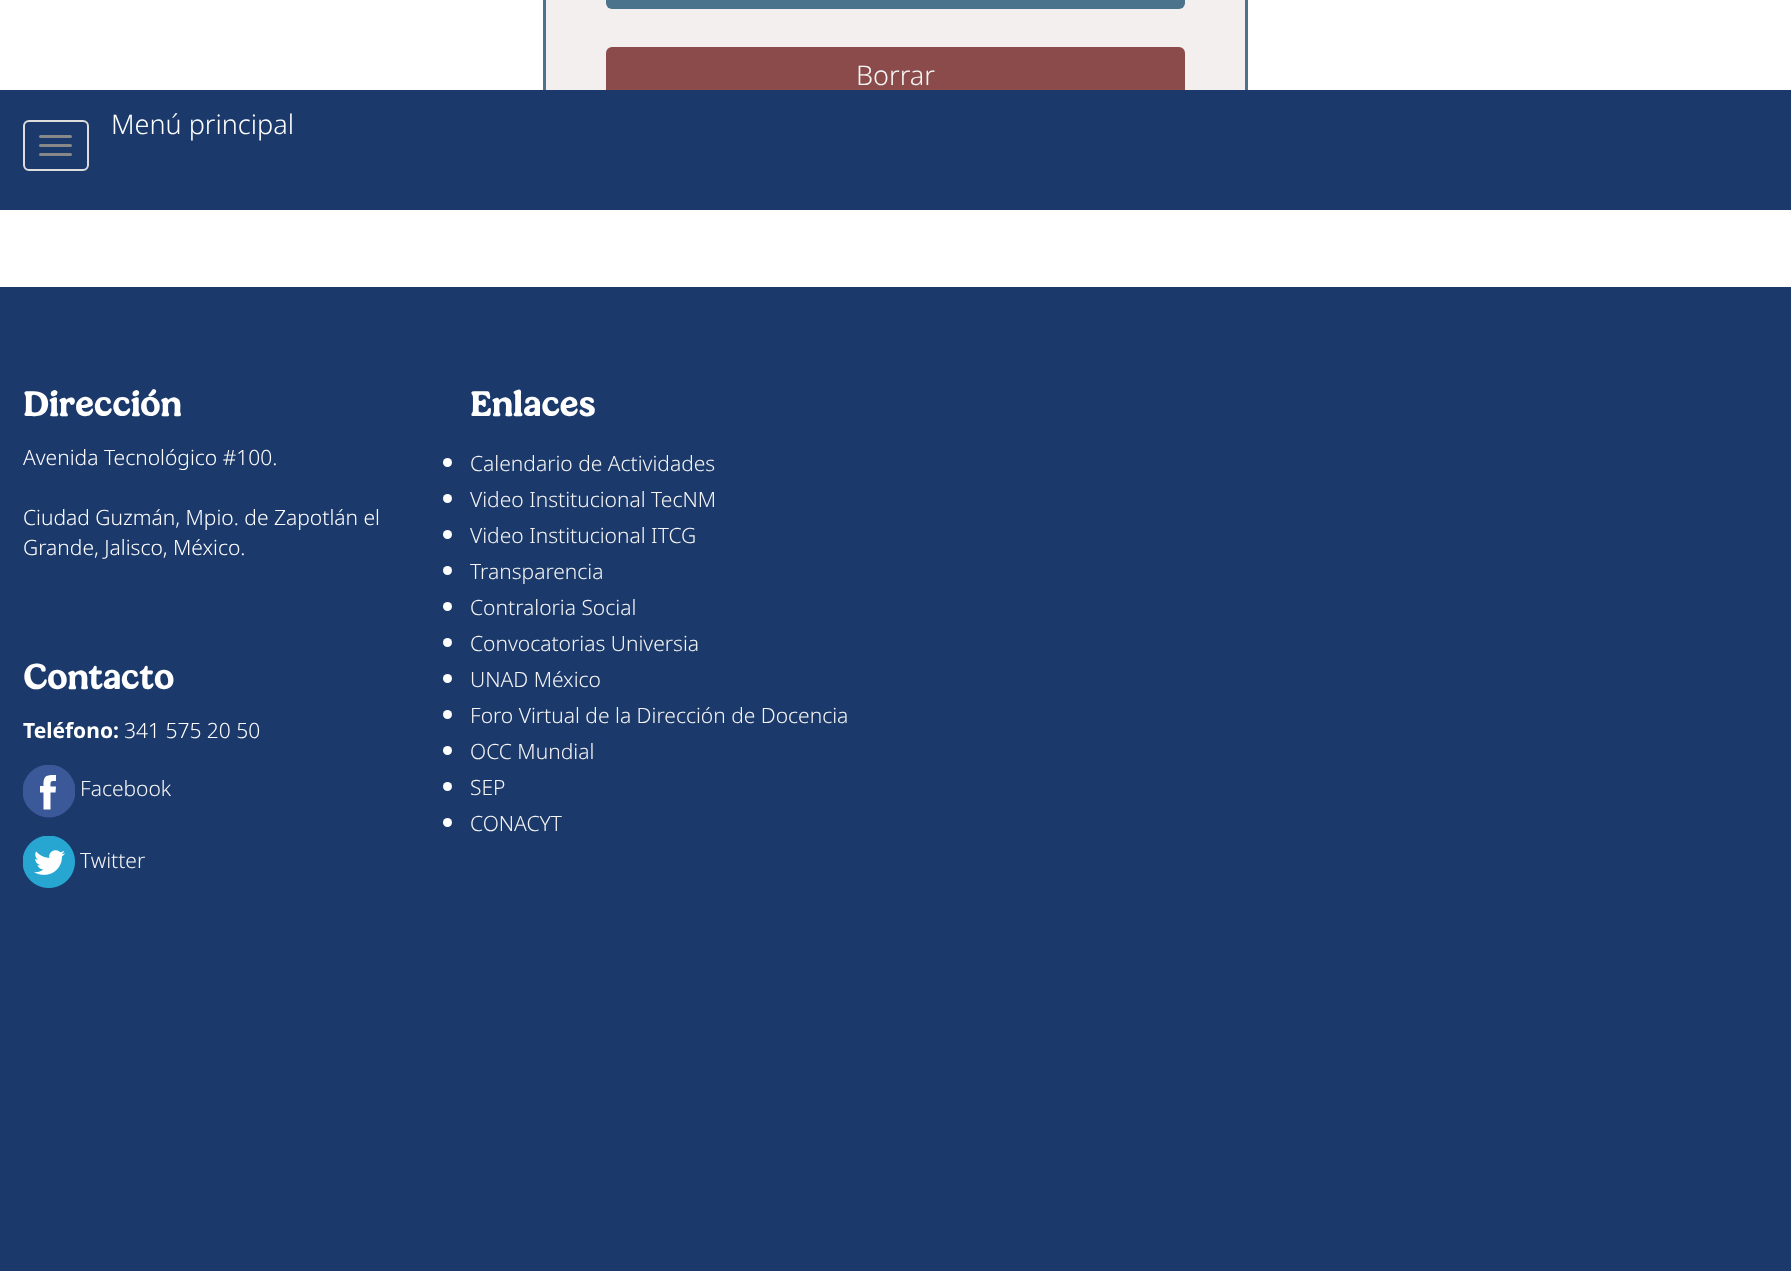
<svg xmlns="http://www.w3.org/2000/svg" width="1791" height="1271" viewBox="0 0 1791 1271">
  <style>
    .t1 { font: 300 27px Noto Sans; fill: #f5f5f5; }
    .t2 { font: 300 27px Noto Sans; fill: #fff; }
    .t3 { font: bold 36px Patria; fill: #fff; }
    .t4 { font: 300 21px Noto Sans; fill: #fff; }
    .t5 { font: bold 21px Noto Sans; fill: #fff; }
    .t6 { font: 300 21px Noto Sans; fill: #f5f5f5; }
  </style>
  <defs>
    <clipPath id="clip1"><rect x="23" y="765" width="52" height="53"/></clipPath>
  </defs>
  <rect width="100%" height="100%" fill="#fff"/>
  <rect x="546" y="0" width="699" height="90" fill="#f4efef"/>
  <rect x="544.5" y="-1.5" width="702" height="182" fill="none" stroke="#4b738b" stroke-width="3"/>
  <rect x="606" y="-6" width="579" height="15" rx="6" fill="#4b738b"/>
  <rect x="606" y="47" width="579" height="57" rx="6" fill="#8b4b4b"/>
  <text x="856" y="85" class="t1">Borrar</text>
  <rect x="0" y="90" width="1791" height="120" fill="#1b396a"/>
  <rect x="24" y="121" width="64" height="49" rx="5" fill="none" stroke="#ddd" stroke-width="2"/>
  <rect x="39" y="135" width="33" height="3" rx="1.5" fill="#888"/>
  <rect x="39" y="144" width="33" height="3" rx="1.5" fill="#888"/>
  <rect x="39" y="153" width="33" height="3" rx="1.5" fill="#888"/>
  <text x="111" y="134" class="t2">Menú principal</text>
  <rect x="0" y="287" width="1791" height="984" fill="#1b396a"/>
  <text x="23" y="416" class="t3">Dirección</text>
  <text x="23" y="465" class="t4">Avenida Tecnológico #100.</text>
  <text x="23" y="525" class="t4">Ciudad Guzmán, Mpio. de Zapotlán el</text>
  <text x="23" y="555" class="t4">Grande, Jalisco, México.</text>
  <text x="23" y="689" class="t3">Contacto</text>
  <text x="23" y="738" class="t5">Teléfono:</text>
  <text x="124" y="738" class="t4">341 575 20 50</text>
  <g clip-path="url(#clip1)">
    <circle cx="49" cy="791" r="26.5" fill="#3b5998"/>
  </g>
  <path d="M55.5 792.5H50.5V809.5H43.5V792.5H40V786H43.5C43.5 775.5 45.5 775 56 775V781C50.5 781 50.5 780.5 50.5 786.5H56Z" fill="#fff"/>
  <text x="80" y="796" class="t6">Facebook</text>
  <image x="23" y="836" width="52" height="52" href="images/1.png"/>
  <text x="80" y="868" class="t6">Twitter</text>
  <text x="470" y="416" class="t3">Enlaces</text>
  <circle cx="447.5" cy="462.5" r="4.5" fill="#fff"/>
  <text x="470" y="471" class="t6">Calendario de Actividades</text>
  <circle cx="447.5" cy="498.5" r="4.5" fill="#fff"/>
  <text x="470" y="507" class="t6">Video Institucional TecNM</text>
  <circle cx="447.5" cy="534.5" r="4.5" fill="#fff"/>
  <text x="470" y="543" class="t6">Video Institucional ITCG</text>
  <circle cx="447.5" cy="570.5" r="4.5" fill="#fff"/>
  <text x="470" y="579" class="t6">Transparencia</text>
  <circle cx="447.5" cy="606.5" r="4.5" fill="#fff"/>
  <text x="470" y="615" class="t6">Contraloria Social</text>
  <circle cx="447.5" cy="642.5" r="4.5" fill="#fff"/>
  <text x="470" y="651" class="t6">Convocatorias Universia</text>
  <circle cx="447.5" cy="678.5" r="4.5" fill="#fff"/>
  <text x="470" y="687" class="t6">UNAD México</text>
  <circle cx="447.5" cy="714.5" r="4.5" fill="#fff"/>
  <text x="470" y="723" class="t6">Foro Virtual de la Dirección de Docencia</text>
  <circle cx="447.5" cy="750.5" r="4.5" fill="#fff"/>
  <text x="470" y="759" class="t6">OCC Mundial</text>
  <circle cx="447.5" cy="786.5" r="4.5" fill="#fff"/>
  <text x="470" y="795" class="t6">SEP</text>
  <circle cx="447.5" cy="822.5" r="4.5" fill="#fff"/>
  <text x="470" y="831" class="t6">CONACYT</text>
</svg>
